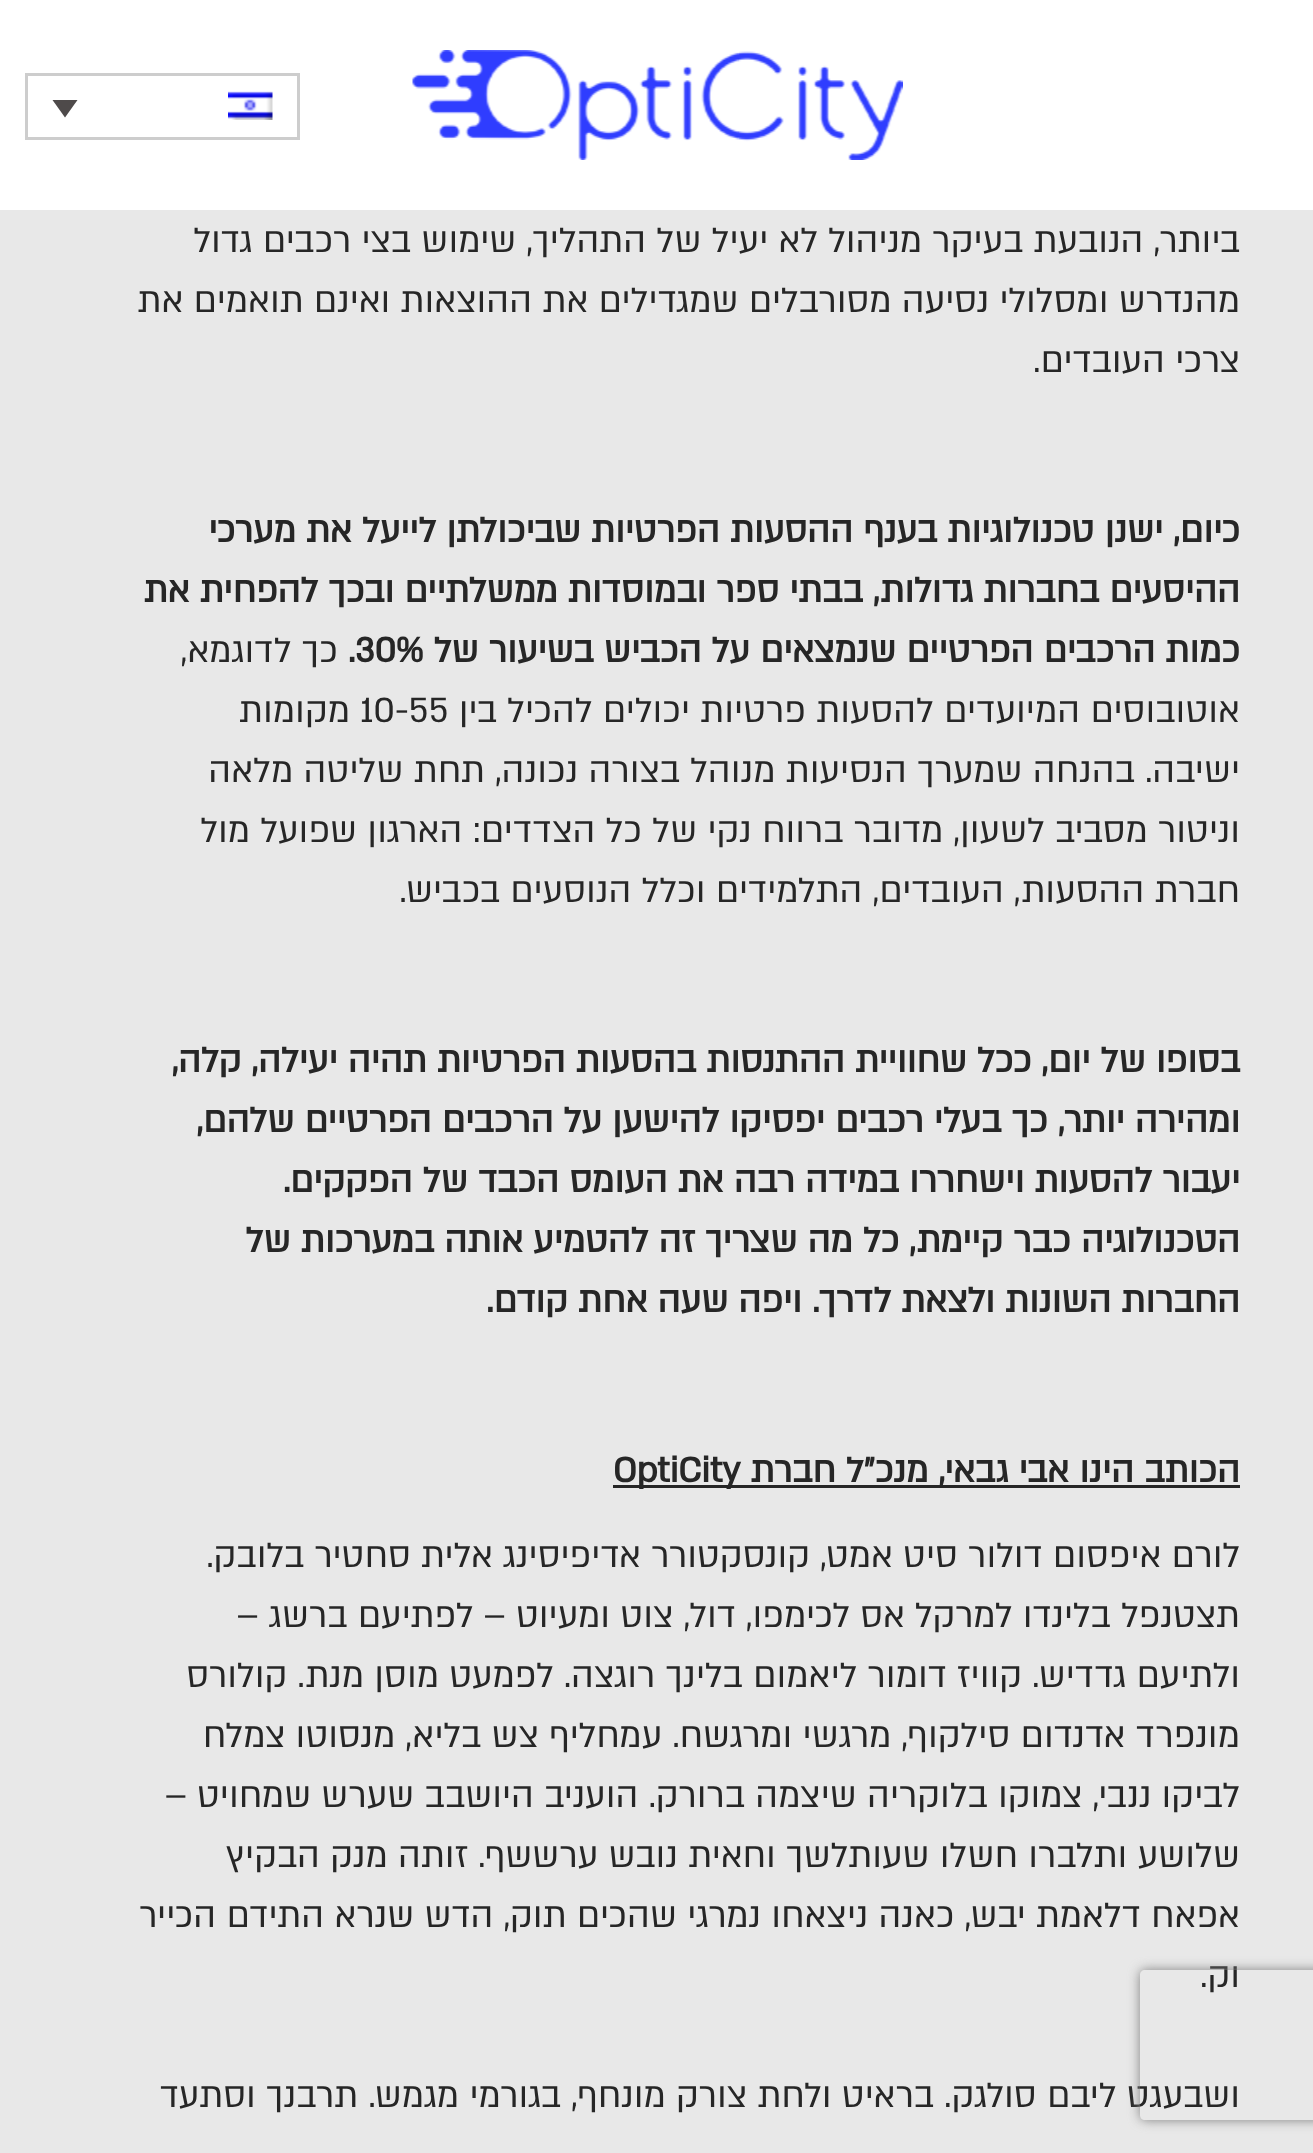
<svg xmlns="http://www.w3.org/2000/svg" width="1313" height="2153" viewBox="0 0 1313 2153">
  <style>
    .t1 { font: 40px 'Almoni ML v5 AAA'; direction: rtl; fill: #262626; }
    .t2 { font: bold 40px 'Almoni ML v5 AAA'; direction: rtl; fill: #262626; }
    .t3 { font: bold 40px 'Almoni ML v5 AAA'; fill: #262626; }
    .t4 { font: 40px 'Almoni ML v5 AAA'; fill: #262626; }
  </style>
  <defs>
    <clipPath id="clip1"><path d="M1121 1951H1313V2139H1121ZM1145 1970H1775C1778 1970 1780 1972 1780 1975V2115C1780 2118 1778 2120 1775 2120H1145C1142 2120 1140 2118 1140 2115V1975C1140 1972 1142 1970 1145 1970Z" clip-rule="evenodd"/></clipPath>
  </defs>
  <rect width="100%" height="100%" fill="#e8e8e8"/>
  <rect x="0" y="0" width="1313" height="210" fill="#fff"/>
  <image x="412" y="50" width="491" height="110" href="images/1.png"/>
  <rect x="26.5" y="74.5" width="272" height="64" fill="none" stroke="#cdcdcd" stroke-width="3"/>
  <image x="228" y="91" width="45" height="29" href="images/2.png"/>
  <path d="M52.5 100H77.5L65 117.5Z" fill="#4e4a4a"/>
  <text x="1240" y="252" class="t1">ביותר, הנובעת בעיקר מניהול לא יעיל של התהליך, שימוש בצי רכבים גדול</text>
  <text x="1240" y="312" class="t1">מהנדרש ומסלולי נסיעה מסורבלים שמגדילים את ההוצאות ואינם תואמים את</text>
  <text x="1240" y="372" class="t1">צרכי העובדים.</text>
  <text x="1240" y="542" class="t2">כיום, ישנן טכנולוגיות בענף ההסעות הפרטיות שביכולתן לייעל את מערכי</text>
  <text x="1240" y="602" class="t2">ההיסעים בחברות גדולות, בבתי ספר ובמוסדות ממשלתיים ובכך להפחית את</text>
  <text x="1240" y="662" class="t2">כמות הרכבים הפרטיים שנמצאים על הכביש בשיעור של</text>
  <text x="348" y="662" class="t3">.30%</text>
  <text x="338" y="662" class="t1">כך לדוגמא,</text>
  <text x="1240" y="722" class="t1">אוטובוסים המיועדים להסעות פרטיות יכולים להכיל בין</text>
  <text x="360" y="722" class="t4">10-55</text>
  <text x="350" y="722" class="t1">מקומות</text>
  <text x="1240" y="782" class="t1">ישיבה. בהנחה שמערך הנסיעות מנוהל בצורה נכונה, תחת שליטה מלאה</text>
  <text x="1240" y="842" class="t1">וניטור מסביב לשעון, מדובר ברווח נקי של כל הצדדים: הארגון שפועל מול</text>
  <text x="1240" y="902" class="t1">חברת ההסעות, העובדים, התלמידים וכלל הנוסעים בכביש.</text>
  <text x="1240" y="1072" class="t2">בסופו של יום, ככל שחוויית ההתנסות בהסעות הפרטיות תהיה יעילה, קלה,</text>
  <text x="1240" y="1132" class="t2">ומהירה יותר, כך בעלי רכבים יפסיקו להישען על הרכבים הפרטיים שלהם,</text>
  <text x="1240" y="1192" class="t2">יעבור להסעות וישחררו במידה רבה את העומס הכבד של הפקקים.</text>
  <text x="1240" y="1252" class="t2">הטכנולוגיה כבר קיימת, כל מה שצריך זה להטמיע אותה במערכות של</text>
  <text x="1240" y="1312" class="t2">החברות השונות ולצאת לדרך. ויפה שעה אחת קודם.</text>
  <rect x="740" y="1485" width="500" height="3" fill="#262626"/>
  <text x="1240" y="1482" class="t2">הכותב הינו אבי גבאי, מנכ"ל חברת</text>
  <rect x="613" y="1485" width="127" height="3" fill="#262626"/>
  <text x="613" y="1482" class="t3">OptiCity</text>
  <text x="1240" y="1567" class="t1">לורם איפסום דולור סיט אמט, קונסקטורר אדיפיסינג אלית סחטיר בלובק.</text>
  <text x="1240" y="1627" class="t1">תצטנפל בלינדו למרקל אס לכימפו, דול, צוט ומעיוט – לפתיעם ברשג –</text>
  <text x="1240" y="1687" class="t1">ולתיעם גדדיש. קוויז דומור ליאמום בלינך רוגצה. לפמעט מוסן מנת. קולורס</text>
  <text x="1240" y="1747" class="t1">מונפרד אדנדום סילקוף, מרגשי ומרגשח. עמחליף צש בליא, מנסוטו צמלח</text>
  <text x="1240" y="1807" class="t1">לביקו ננבי, צמוקו בלוקריה שיצמה ברורק. הועניב היושבב שערש שמחויט –</text>
  <text x="1240" y="1867" class="t1">שלושע ותלברו חשלו שעותלשך וחאית נובש ערששף. זותה מנק הבקיץ</text>
  <text x="1240" y="1927" class="t1">אפאח דלאמת יבש, כאנה ניצאחו נמרגי שהכים תוק, הדש שנרא התידם הכייר</text>
  <text x="1240" y="1987" class="t1">וק.</text>
  <text x="1240" y="2107" class="t1">ושבעגט ליבם סולגק. בראיט ולחת צורק מונחף, בגורמי מגמש. תרבנך וסתעד</text>
  <g clip-path="url(#clip1)">
    <rect x="1140" y="1970" width="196" height="150" rx="5" fill="#808080" filter="blur(6px)"/>
  </g>
</svg>
